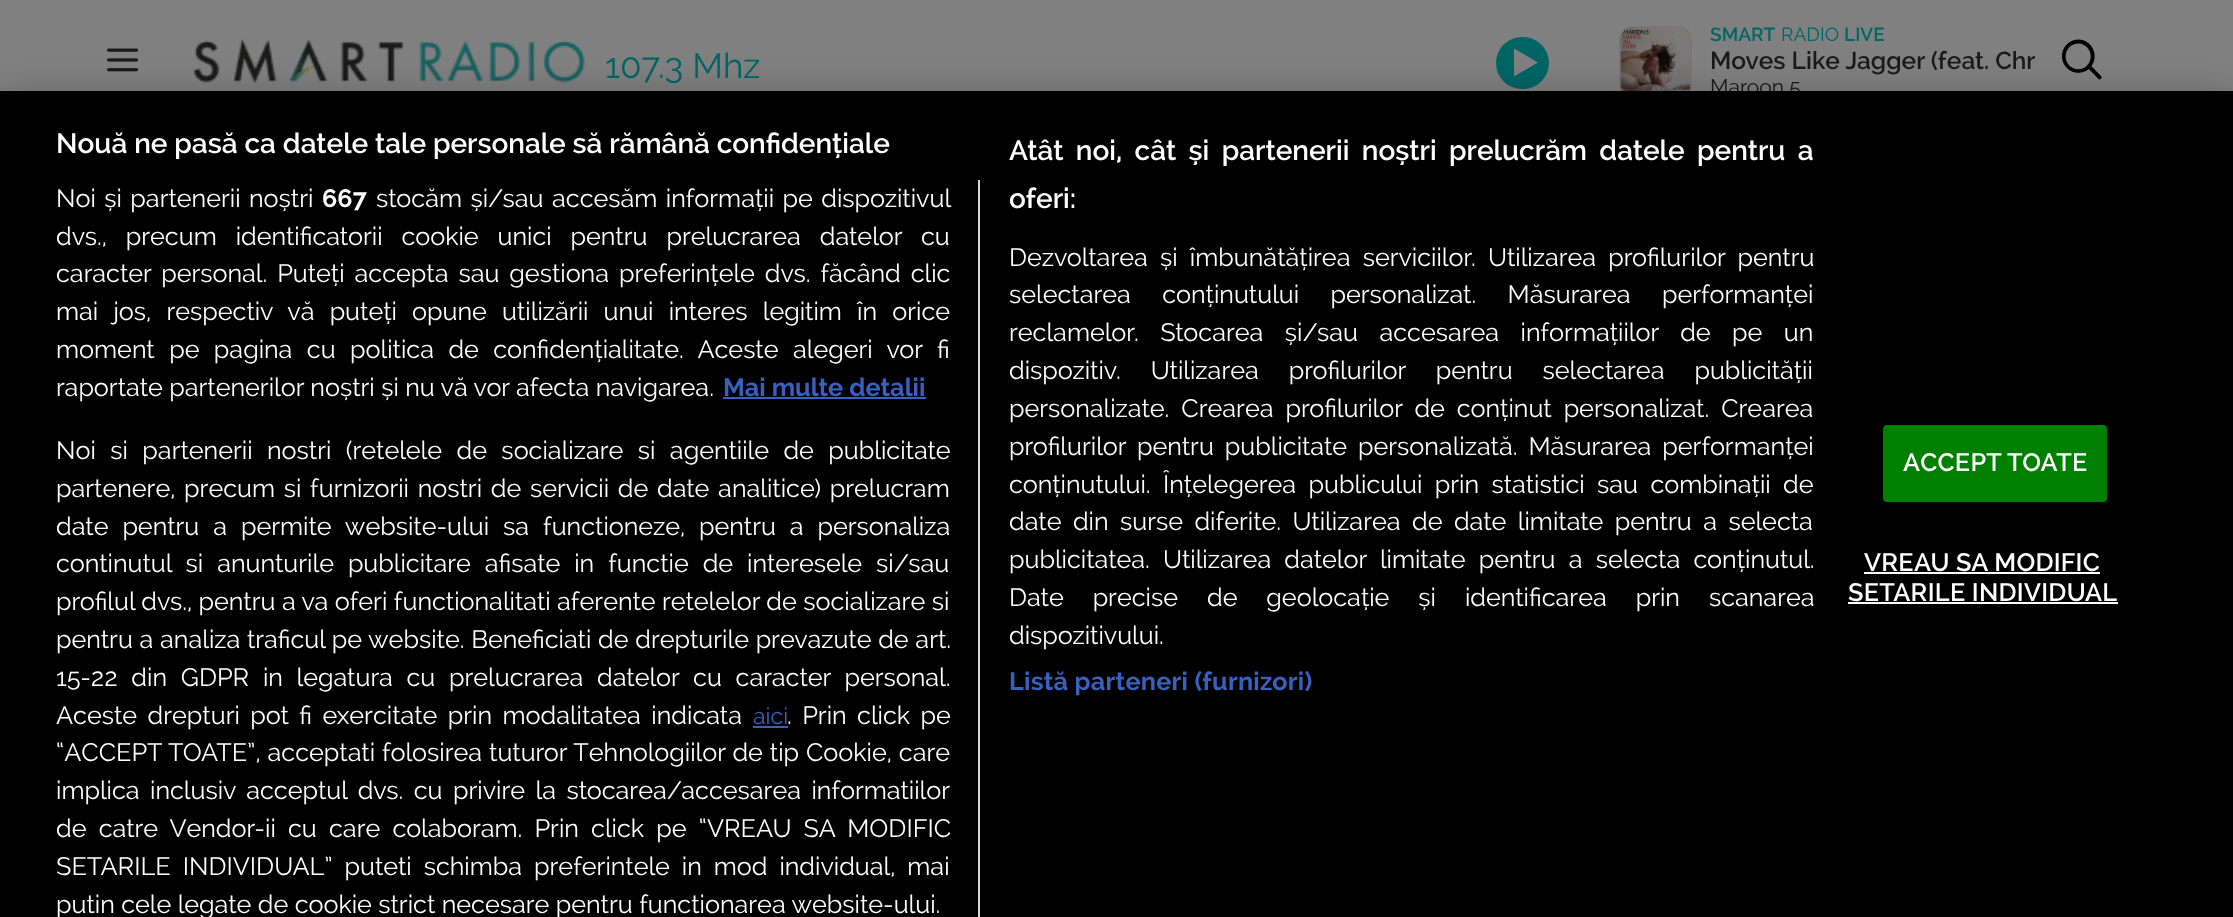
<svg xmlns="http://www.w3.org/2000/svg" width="2233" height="917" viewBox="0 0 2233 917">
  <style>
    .t1 { font: 35px Raleway; fill: #006565; }
    .t2 { font: 600 19px Raleway; fill: #006565; }
    .t3 { font: 19px Raleway; fill: #006565; }
    .t4 { font: 600 24.5px Raleway; fill: #1a1a1a; }
    .t5 { font: 21px Raleway; fill: #1a1a1a; }
    .t6 { font: 600 28px Raleway; fill: #fff; }
    .t7 { font: 25.2px Raleway; fill: #fff; }
    .t8 { font: bold 25.2px Raleway; letter-spacing: 0.25px; fill: #3860be; }
    .t9 { font: bold 25.2px Raleway; fill: #fff; }
    .t10 { font: bold 25.2px Raleway; fill: #3860be; }
    .t11 { font: 23px Raleway; fill: #3860be; }
    .t12 { font: 600 25.2px Raleway; letter-spacing: 0.25px; fill: #fff; }
  </style>
  <rect width="100%" height="100%" fill="#808080"/>
  <image x="107" y="48" width="32" height="24" href="images/1.png"/>
  <image x="193" y="38" width="392" height="45" href="images/2.png"/>
  <text x="605" y="78" class="t1">107.3 Mhz</text>
  <rect x="1496" y="37" width="53" height="52" rx="26" fill="#006565"/>
  <path d="M1538 62.5L1514 48.5V76.5Z" fill="#808080"/>
  <rect x="1620" y="27" width="71" height="72" rx="13" fill="none" stroke="#777" stroke-width="2"/>
  <image x="1620" y="27" width="71" height="64" href="images/3.png"/>
  <text x="1710" y="41" class="t2">SMART</text>
  <text x="1781" y="41" class="t3">RADIO</text>
  <text x="1844" y="41" class="t2">LIVE</text>
  <text x="1710" y="69" class="t4">Moves Like Jagger (feat. Chr</text>
  <text x="1710" y="94" class="t5">Maroon 5</text>
  <image x="2062" y="39" width="40" height="41" href="images/4.png"/>
  <rect x="0" y="91" width="2233" height="826" fill="#00000033" filter="blur(16px)"/>
  <rect x="0" y="91" width="2233" height="826" fill="#000"/>
  <text x="56" y="153" class="t6">Nouă ne pasă ca datele tale personale să rămână confidențiale</text>
  <text x="1009" y="160" word-spacing="5.5" class="t6">Atât noi, cât și partenerii noștri prelucrăm datele pentru a</text>
  <text x="1009" y="208" class="t6">oferi:</text>
  <text x="1009" y="266" word-spacing="5.75" class="t7">Dezvoltarea și îmbunătățirea serviciilor. Utilizarea profilurilor pentru</text>
  <text x="1009" y="303" word-spacing="25" class="t7">selectarea conținutului personalizat. Măsurarea performanței</text>
  <text x="1009" y="341" word-spacing="15" class="t7">reclamelor. Stocarea și/sau accesarea informațiilor de pe un</text>
  <text x="1009" y="379" word-spacing="23.5" class="t7">dispozitiv. Utilizarea profilurilor pentru selectarea publicității</text>
  <text x="1009" y="417" word-spacing="5.5" class="t7">personalizate. Crearea profilurilor de conținut personalizat. Crearea</text>
  <text x="1009" y="455" word-spacing="4.5" class="t7">profilurilor pentru publicitate personalizată. Măsurarea performanței</text>
  <text x="1009" y="493" word-spacing="6" class="t7">conținutului. Înțelegerea publicului prin statistici sau combinații de</text>
  <text x="1009" y="530" word-spacing="5" class="t7">date din surse diferite. Utilizarea de date limitate pentru a selecta</text>
  <text x="1009" y="568" word-spacing="6.75" class="t7">publicitatea. Utilizarea datelor limitate pentru a selecta conținutul.</text>
  <text x="1009" y="606" word-spacing="22.5" class="t7">Date precise de geolocație și identificarea prin scanarea</text>
  <text x="1009" y="644" class="t7">dispozitivului.</text>
  <text x="1009" y="690" class="t8">Listă parteneri (furnizori)</text>
  <rect x="978" y="180" width="2" height="737" fill="#d8d8d8"/>
  <text x="56" y="207" word-spacing="2" class="t7">Noi și partenerii noștri</text>
  <text x="322" y="207" class="t9">667</text>
  <text x="376" y="207" word-spacing="2" class="t7">stocăm și/sau accesăm informații pe dispozitivul</text>
  <text x="56" y="245" word-spacing="12.5" class="t7">dvs., precum identificatorii cookie unici pentru prelucrarea datelor cu</text>
  <text x="56" y="282" word-spacing="3.5" class="t7">caracter personal. Puteți accepta sau gestiona preferințele dvs. făcând clic</text>
  <text x="56" y="320" word-spacing="8.75" class="t7">mai jos, respectiv vă puteți opune utilizării unui interes legitim în orice</text>
  <text x="56" y="358" word-spacing="8" class="t7">moment pe pagina cu politica de confidențialitate. Aceste alegeri vor fi</text>
  <text x="56" y="396" class="t7">raportate partenerilor noștri și nu vă vor afecta navigarea.</text>
  <text x="723" y="396" class="t10">Mai multe detalii</text>
  <rect x="723" y="397" width="203" height="2" fill="#3860be"/>
  <text x="56" y="459" word-spacing="8" class="t7">Noi si partenerii nostri (retelele de socializare si agentiile de publicitate</text>
  <text x="56" y="497" word-spacing="2.25" class="t7">partenere, precum si furnizorii nostri de servicii de date analitice) prelucram</text>
  <text x="56" y="535" word-spacing="7.5" class="t7">date pentru a permite website-ului sa functioneze, pentru a personaliza</text>
  <text x="56" y="572" word-spacing="7.5" class="t7">continutul si anunturile publicitare afisate in functie de interesele si/sau</text>
  <text x="56" y="610" class="t7">profilul dvs., pentru a va oferi functionalitati aferente retelelor de socializare si</text>
  <text x="56" y="648" word-spacing="0.25" class="t7">pentru a analiza traficul pe website. Beneficiati de drepturile prevazute de art.</text>
  <text x="56" y="686" word-spacing="7.25" class="t7">15-22 din GDPR in legatura cu prelucrarea datelor cu caracter personal.</text>
  <text x="56" y="724" word-spacing="4" class="t7">Aceste drepturi pot fi exercitate prin modalitatea indicata</text>
  <text x="753" y="724" class="t11">aici</text>
  <rect x="753" y="726" width="35" height="2" fill="#3860be"/>
  <text x="787" y="724" word-spacing="4" class="t7">. Prin click pe</text>
  <text x="56" y="761" word-spacing="0.5" class="t7">“ACCEPT TOATE”, acceptati folosirea tuturor Tehnologiilor de tip Cookie, care</text>
  <text x="56" y="799" word-spacing="4" class="t7">implica inclusiv acceptul dvs. cu privire la stocarea/accesarea informatiilor</text>
  <text x="56" y="837" word-spacing="5.75" class="t7">de catre Vendor-ii cu care colaboram. Prin click pe “VREAU SA MODIFIC</text>
  <text x="56" y="875" word-spacing="5.5" class="t7">SETARILE INDIVIDUAL” puteti schimba preferintele in mod individual, mai</text>
  <text x="56" y="913" class="t7">putin cele legate de cookie strict necesare pentru functionarea website-ului.</text>
  <rect x="1884" y="426" width="222" height="75" rx="3" fill="#008000" stroke="#008000" stroke-width="2"/>
  <text x="1903" y="471" class="t12">ACCEPT TOATE</text>
  <text x="1864" y="571" class="t12">VREAU SA MODIFIC</text>
  <rect x="1864" y="572" width="236" height="2" fill="#fff"/>
  <text x="1848" y="601" class="t12">SETARILE INDIVIDUAL</text>
  <rect x="1848" y="602" width="270" height="2" fill="#fff"/>
</svg>
